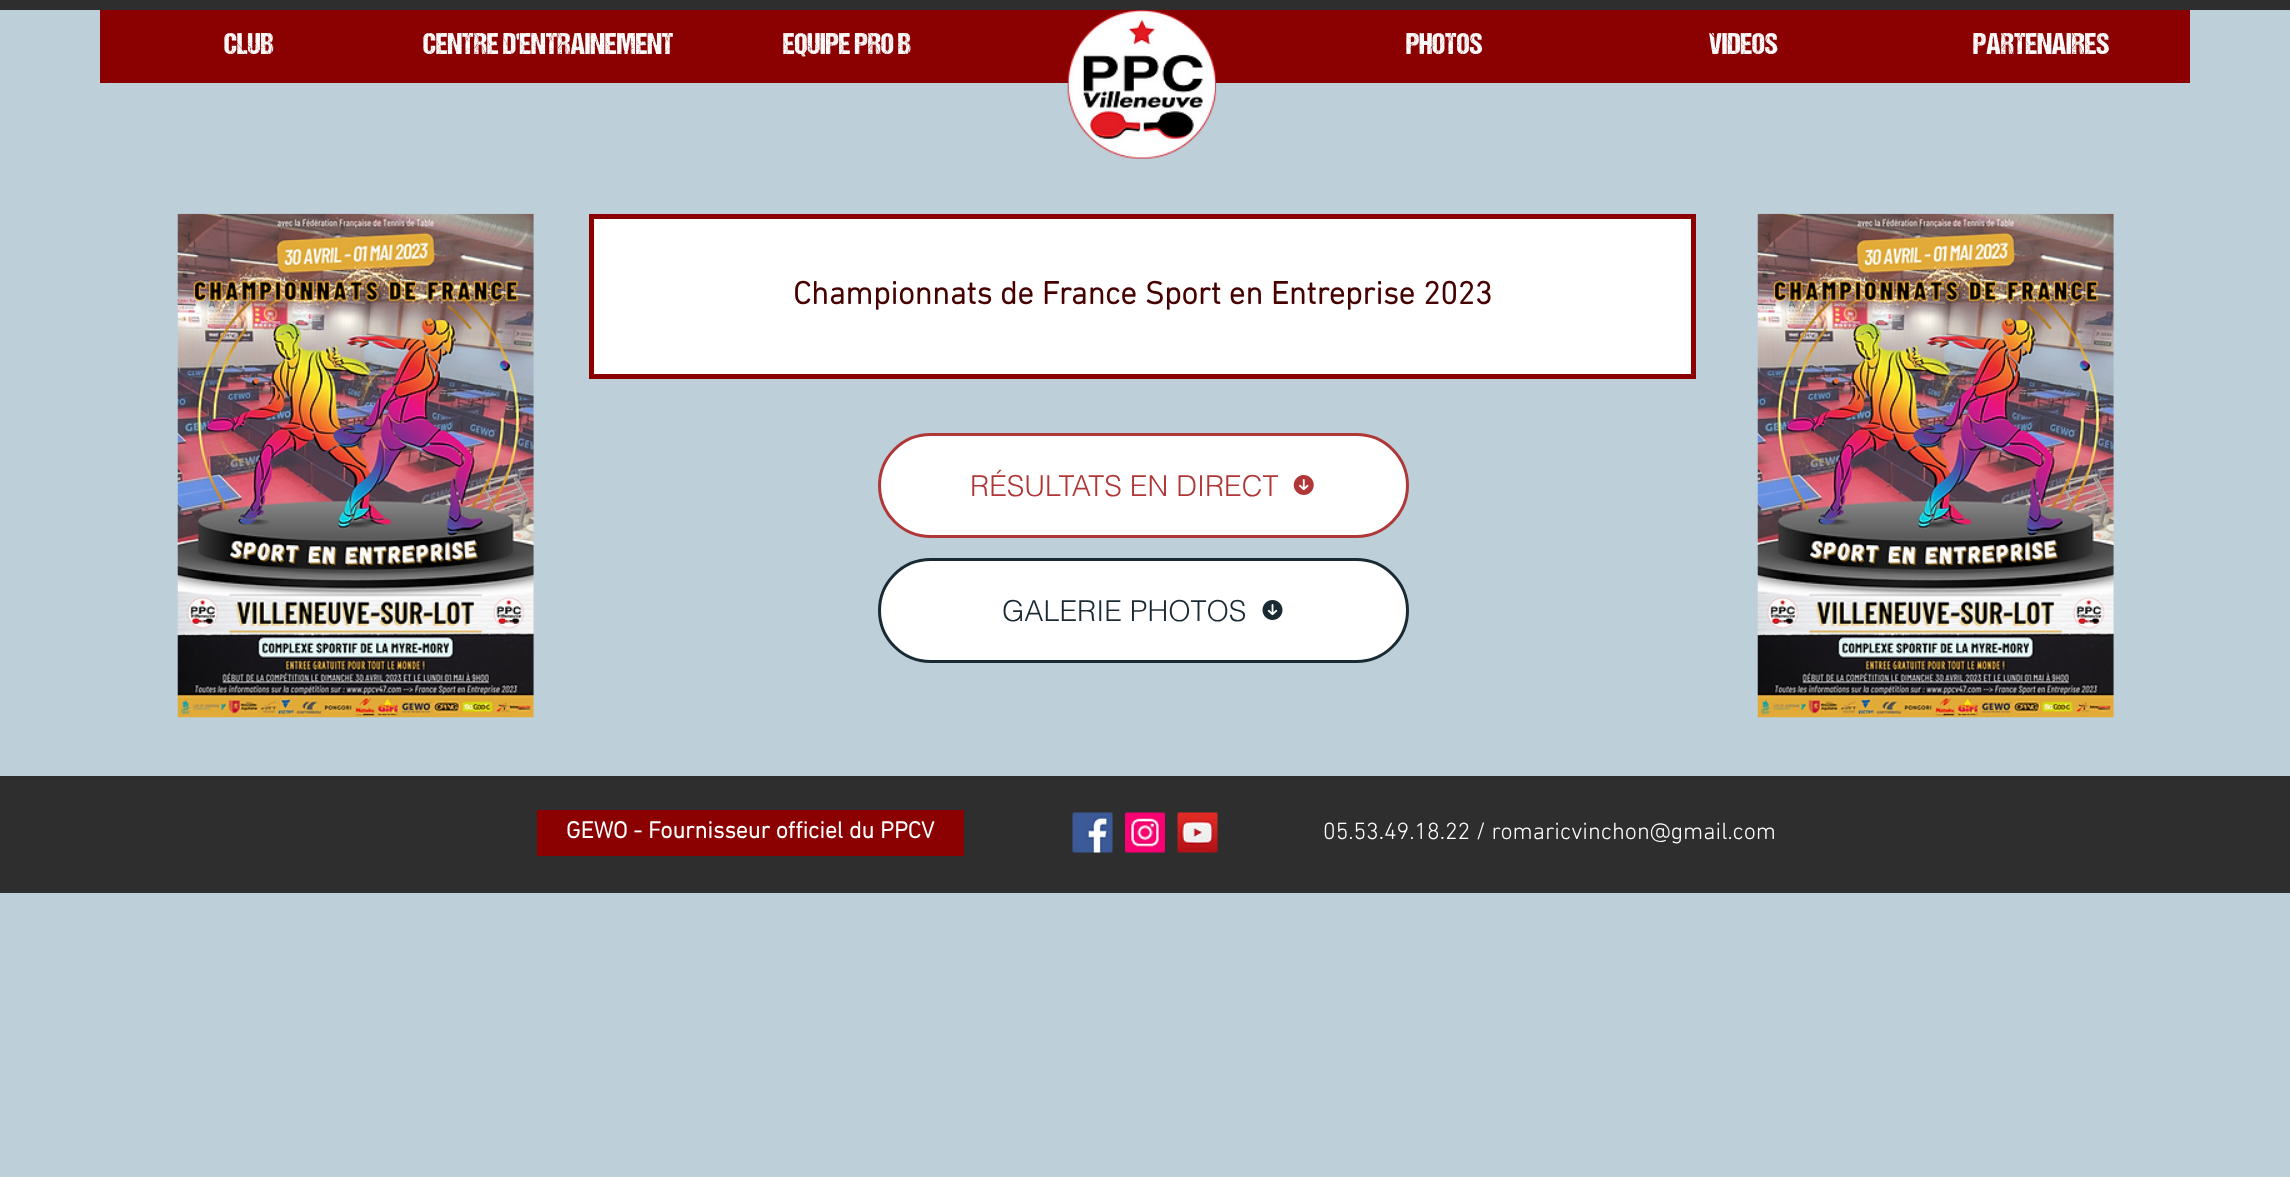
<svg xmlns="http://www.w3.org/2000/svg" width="2290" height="1177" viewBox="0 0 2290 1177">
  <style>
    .t1 { font: 30px 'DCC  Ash'; fill: #fff; }
    .t2 { font: bold 32.5px 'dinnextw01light'; fill: #460000; }
    .t3 { font: 300 28.75px helvetica; fill: #b03737; }
    .t4 { font: 300 28.75px helvetica; fill: #192a33; }
    .t5 { font: bold 23.75px 'dinnextw01light'; fill: #fff; }
    .t6 { font: 300 23.75px 'dinnextw01light'; fill: #fff; }
  </style>
  <rect width="100%" height="100%" fill="#bdcfd9"/>
  <rect x="0" y="0" width="2290" height="10" fill="#2f2e2e"/>
  <rect x="100" y="10" width="2090" height="73" fill="#8b0000"/>
  <image x="1067" y="10" width="150" height="149" href="images/1.png"/>
  <text x="224" y="54" class="t1">CLUB</text>
  <text x="423" y="54" class="t1">CENTRE D'ENTRAINEMENT</text>
  <text x="783" y="54" class="t1">EQUIPE PRO B</text>
  <text x="1406" y="54" class="t1">PHOTOS</text>
  <text x="1709" y="54" class="t1">VIDEOS</text>
  <text x="1973" y="54" class="t1">PARTENAIRES</text>
  <image x="177" y="213" width="357" height="505" href="images/2.png"/>
  <rect x="594" y="219" width="1097" height="155" fill="#fff"/>
  <path d="M1693.5 216.5V376.5H591.5V216.5Z" fill="none" stroke="#8b0000" stroke-width="5"/>
  <text x="793" y="304" class="t2">Championnats de France Sport en Entreprise 2023</text>
  <image x="1757" y="213" width="357" height="505" href="images/3.png"/>
  <rect x="879.5" y="434.5" width="528" height="102" rx="51" fill="#fff" stroke="#b03737" stroke-width="3"/>
  <text x="970" y="496" class="t3">RÉSULTATS EN DIRECT</text>
  <image x="1293" y="475" width="21" height="20" href="images/4.png"/>
  <rect x="879.5" y="559.5" width="528" height="102" rx="51" fill="#fff" stroke="#192a33" stroke-width="3"/>
  <text x="1002" y="621" class="t4">GALERIE PHOTOS</text>
  <image x="1262" y="600" width="21" height="20" href="images/5.png"/>
  <rect x="0" y="776" width="2290" height="117" fill="#2f2e2e"/>
  <rect x="537" y="810" width="427" height="46" fill="#8b0000"/>
  <text x="566" y="838" class="t5">GEWO - Fournisseur officiel du PPCV</text>
  <image x="1072" y="812" width="41" height="41" href="images/6.png"/>
  <image x="1125" y="812" width="40" height="41" href="images/7.png"/>
  <image x="1177" y="812" width="41" height="41" href="images/8.png"/>
  <text x="1323" y="839" class="t6">05.53.49.18.22 / romaricvinchon@gmail.com</text>
</svg>
